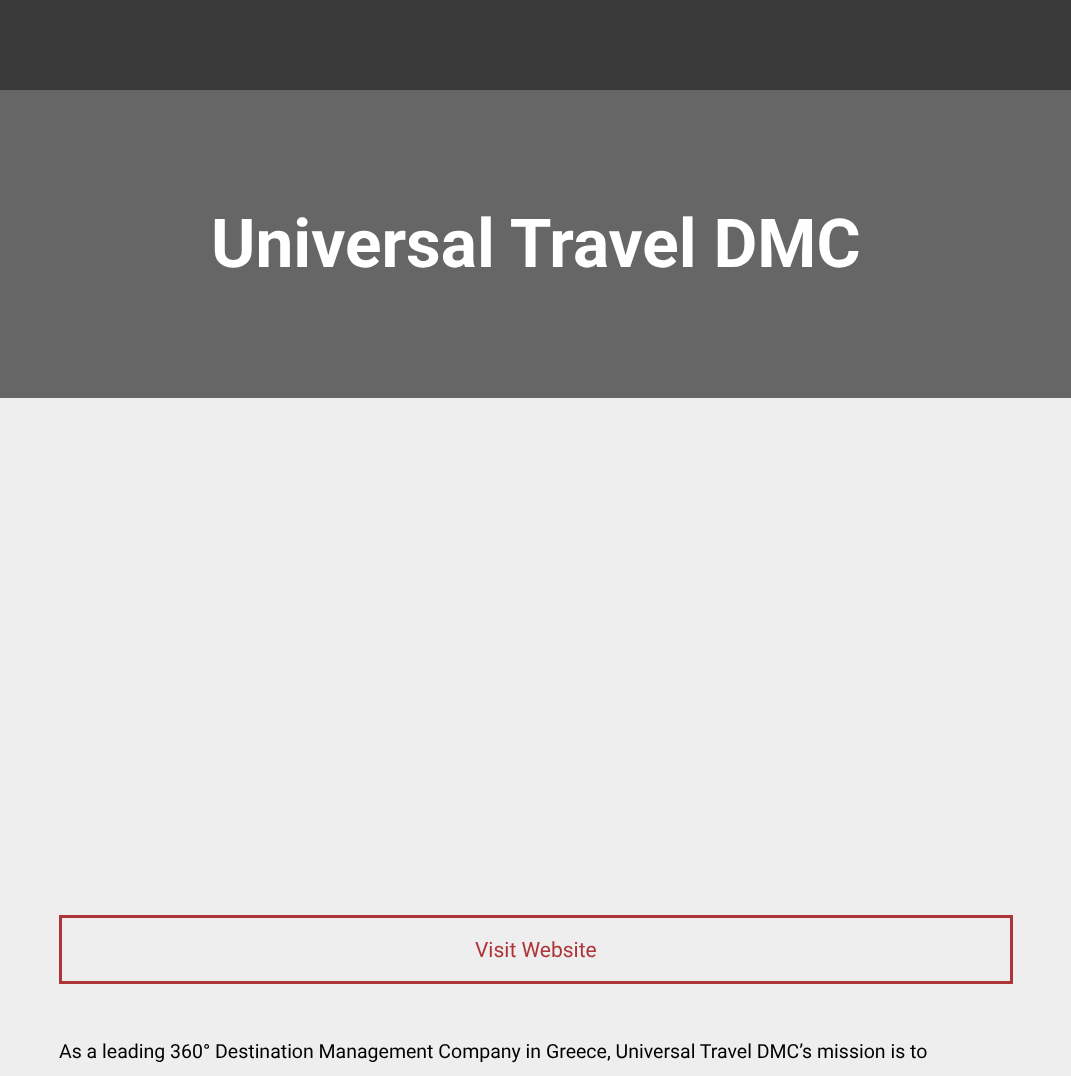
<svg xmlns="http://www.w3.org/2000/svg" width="1071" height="1076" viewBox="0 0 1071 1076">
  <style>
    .t1 { font: bold 67.5px Roboto; fill: #fff; }
    .t2 { font: 21px Roboto; fill: #ad3439; }
    .t3 { font: 19.5px Roboto; fill: #000; }
  </style>
  <rect width="100%" height="100%" fill="#eee"/>
  <rect x="0" y="90" width="1071" height="308" fill="#666"/>
  <rect x="0" y="0" width="1071" height="90" fill="#3a3a3a"/>
  <text x="211" y="267" class="t1">Universal Travel DMC</text>
  <rect x="60.5" y="916.5" width="951" height="66" fill="none" stroke="#ad3439" stroke-width="3"/>
  <text x="475" y="957" class="t2">Visit Website</text>
  <text x="59" y="1058" class="t3">As a leading 360° Destination Management Company in Greece, Universal Travel DMC’s mission is to</text>
</svg>
